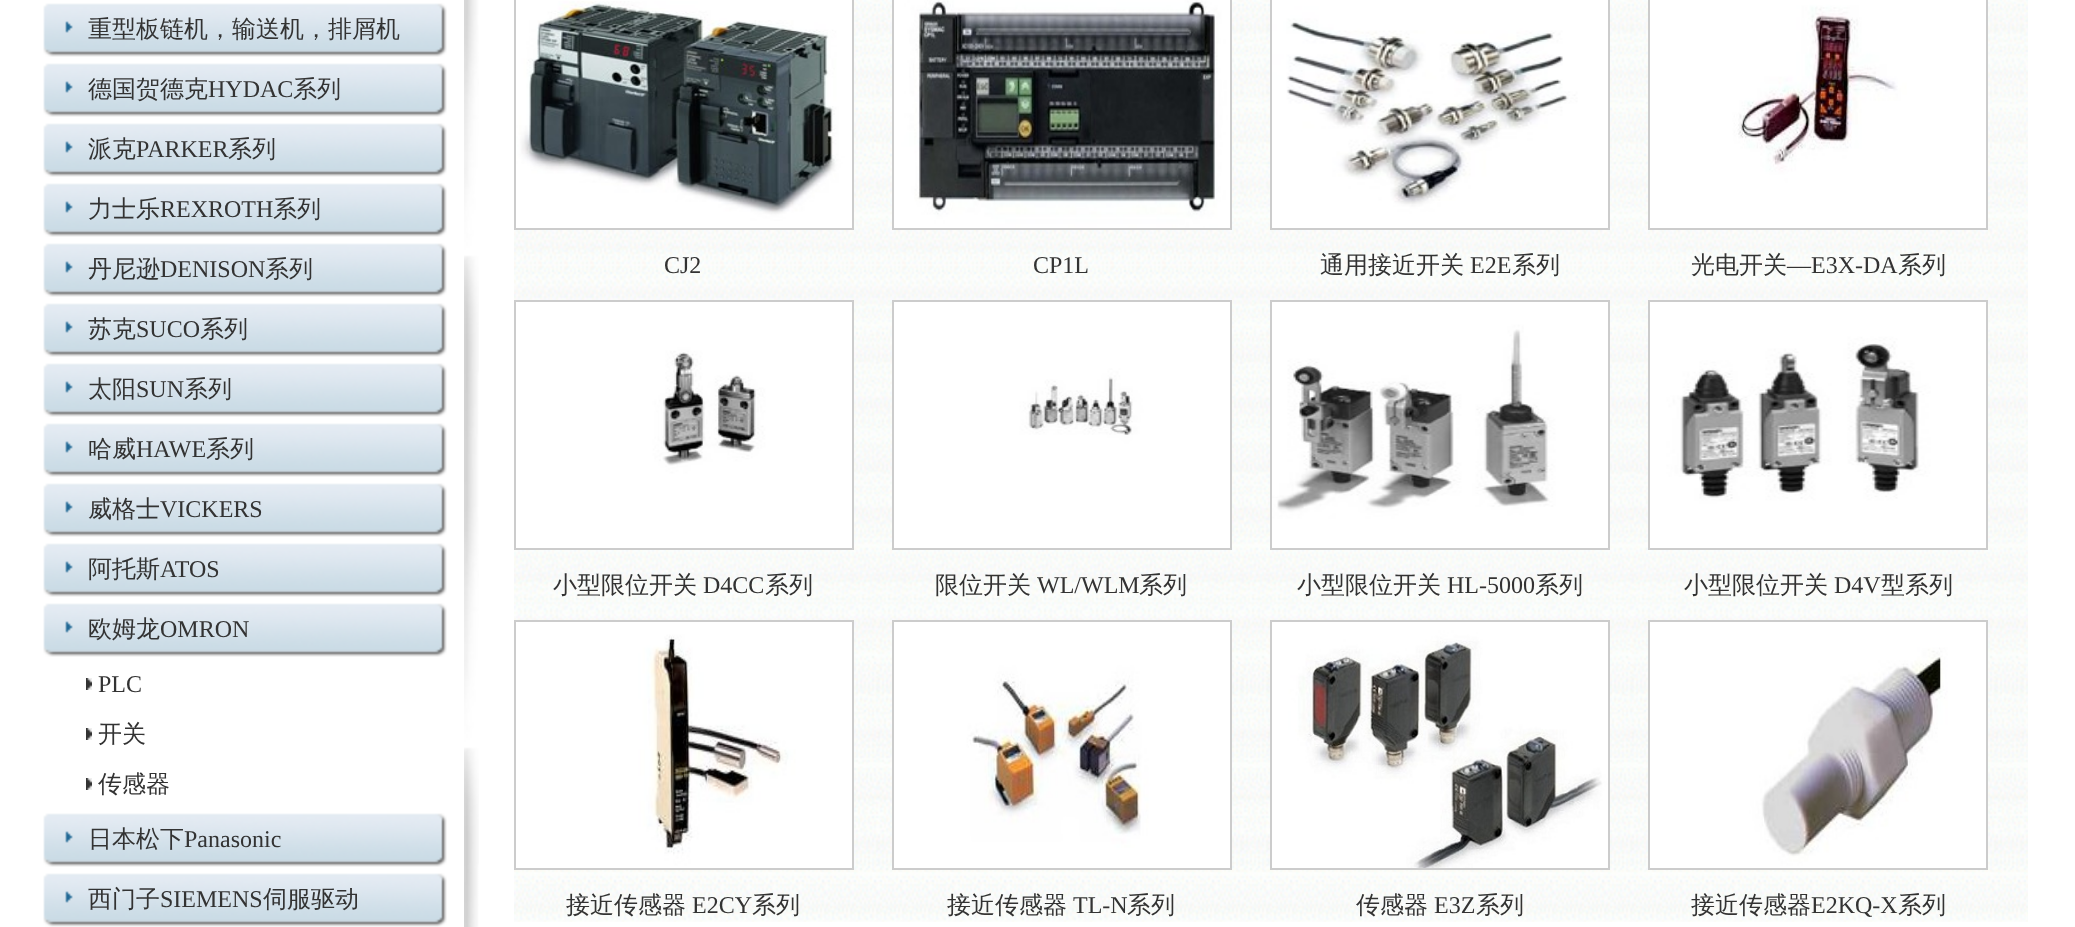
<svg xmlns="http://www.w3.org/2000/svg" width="2075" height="927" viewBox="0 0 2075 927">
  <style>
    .t1 { font: 500 24px WenQuanYi Zen Hei; fill: #333; }
    .t2 { font: 24px Liberation Serif; fill: #333; }
  </style>
  <rect width="100%" height="100%" fill="#fff"/>
  <image x="43" y="3" width="404" height="54" href="images/1.png"/>
  <text x="88" y="37" class="t1">重型板链机，输送机，排屑机</text>
  <image x="43" y="63" width="404" height="54" href="images/1.png"/>
  <text x="88" y="97" class="t1">德国贺德克</text>
  <text x="208" y="97" class="t2">HYDAC</text>
  <text x="293" y="97" class="t1">系列</text>
  <image x="43" y="123" width="404" height="54" href="images/1.png"/>
  <text x="88" y="157" class="t1">派克</text>
  <text x="136" y="157" class="t2">PARKER</text>
  <text x="228" y="157" class="t1">系列</text>
  <image x="43" y="183" width="404" height="54" href="images/1.png"/>
  <text x="88" y="217" class="t1">力士乐</text>
  <text x="160" y="217" class="t2">REXROTH</text>
  <text x="273" y="217" class="t1">系列</text>
  <image x="43" y="243" width="404" height="54" href="images/1.png"/>
  <text x="88" y="277" class="t1">丹尼逊</text>
  <text x="160" y="277" class="t2">DENISON</text>
  <text x="265" y="277" class="t1">系列</text>
  <image x="43" y="303" width="404" height="54" href="images/1.png"/>
  <text x="88" y="337" class="t1">苏克</text>
  <text x="136" y="337" class="t2">SUCO</text>
  <text x="200" y="337" class="t1">系列</text>
  <image x="43" y="363" width="404" height="54" href="images/1.png"/>
  <text x="88" y="397" class="t1">太阳</text>
  <text x="136" y="397" class="t2">SUN</text>
  <text x="184" y="397" class="t1">系列</text>
  <image x="43" y="423" width="404" height="54" href="images/1.png"/>
  <text x="88" y="457" class="t1">哈威</text>
  <text x="136" y="457" class="t2">HAWE</text>
  <text x="206" y="457" class="t1">系列</text>
  <image x="43" y="483" width="404" height="54" href="images/1.png"/>
  <text x="88" y="517" class="t1">威格士</text>
  <text x="160" y="517" class="t2">VICKERS</text>
  <image x="43" y="543" width="404" height="54" href="images/1.png"/>
  <text x="88" y="577" class="t1">阿托斯</text>
  <text x="160" y="577" class="t2">ATOS</text>
  <image x="43" y="603" width="404" height="54" href="images/1.png"/>
  <text x="88" y="637" class="t1">欧姆龙</text>
  <text x="160" y="637" class="t2">OMRON</text>
  <image x="86" y="678" width="6" height="12" href="images/2.png"/>
  <text x="98" y="692" class="t2">PLC</text>
  <image x="86" y="728" width="6" height="12" href="images/2.png"/>
  <text x="98" y="742" class="t1">开关</text>
  <image x="86" y="778" width="6" height="12" href="images/2.png"/>
  <text x="98" y="792" class="t1">传感器</text>
  <image x="43" y="813" width="404" height="54" href="images/1.png"/>
  <text x="88" y="847" class="t1">日本松下</text>
  <text x="184" y="847" class="t2">Panasonic</text>
  <image x="43" y="873" width="404" height="54" href="images/1.png"/>
  <text x="88" y="907" class="t1">西门子</text>
  <text x="160" y="907" class="t2">SIEMENS</text>
  <text x="263" y="907" class="t1">伺服驱动</text>
  <image x="464" y="0" width="15" height="927" href="images/3.png"/>
  <image x="514" y="0" width="1514" height="922" href="images/4.png"/>
  <rect x="515" y="-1" width="338" height="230" fill="none" stroke="#ccc" stroke-width="2"/>
  <image x="516" y="0" width="336" height="228" href="images/5.png"/>
  <text x="664" y="273" class="t2">CJ2</text>
  <rect x="893" y="-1" width="338" height="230" fill="none" stroke="#ccc" stroke-width="2"/>
  <image x="894" y="0" width="336" height="228" href="images/6.png"/>
  <text x="1033" y="273" class="t2">CP1L</text>
  <rect x="1271" y="-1" width="338" height="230" fill="none" stroke="#ccc" stroke-width="2"/>
  <image x="1272" y="0" width="336" height="228" href="images/7.png"/>
  <text x="1320" y="273" class="t1">通用接近开关</text>
  <text x="1470" y="273" class="t2">E2E</text>
  <text x="1512" y="273" class="t1">系列</text>
  <rect x="1649" y="-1" width="338" height="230" fill="none" stroke="#ccc" stroke-width="2"/>
  <image x="1650" y="0" width="336" height="228" href="images/8.png"/>
  <text x="1691" y="273" class="t1">光电开关</text>
  <text x="1787" y="273" class="t2">—E3X-DA</text>
  <text x="1898" y="273" class="t1">系列</text>
  <rect x="515" y="301" width="338" height="248" fill="none" stroke="#ccc" stroke-width="2"/>
  <image x="516" y="302" width="336" height="246" href="images/9.png"/>
  <text x="553" y="593" class="t1">小型限位开关</text>
  <text x="703" y="593" class="t2">D4CC</text>
  <text x="765" y="593" class="t1">系列</text>
  <rect x="893" y="301" width="338" height="248" fill="none" stroke="#ccc" stroke-width="2"/>
  <image x="894" y="302" width="336" height="246" href="images/10.png"/>
  <text x="935" y="593" class="t1">限位开关</text>
  <text x="1037" y="593" class="t2">WL/WLM</text>
  <text x="1139" y="593" class="t1">系列</text>
  <rect x="1271" y="301" width="338" height="248" fill="none" stroke="#ccc" stroke-width="2"/>
  <image x="1272" y="302" width="336" height="246" href="images/11.png"/>
  <text x="1297" y="593" class="t1">小型限位开关</text>
  <text x="1447" y="593" class="t2">HL-5000</text>
  <text x="1535" y="593" class="t1">系列</text>
  <rect x="1649" y="301" width="338" height="248" fill="none" stroke="#ccc" stroke-width="2"/>
  <image x="1650" y="302" width="336" height="246" href="images/12.png"/>
  <text x="1684" y="593" class="t1">小型限位开关</text>
  <text x="1834" y="593" class="t2">D4V</text>
  <text x="1881" y="593" class="t1">型系列</text>
  <rect x="515" y="621" width="338" height="248" fill="none" stroke="#ccc" stroke-width="2"/>
  <image x="516" y="622" width="336" height="246" href="images/13.png"/>
  <text x="566" y="913" class="t1">接近传感器</text>
  <text x="692" y="913" class="t2">E2CY</text>
  <text x="752" y="913" class="t1">系列</text>
  <rect x="893" y="621" width="338" height="248" fill="none" stroke="#ccc" stroke-width="2"/>
  <image x="894" y="622" width="336" height="246" href="images/14.png"/>
  <text x="947" y="913" class="t1">接近传感器</text>
  <text x="1073" y="913" class="t2">TL-N</text>
  <text x="1127" y="913" class="t1">系列</text>
  <rect x="1271" y="621" width="338" height="248" fill="none" stroke="#ccc" stroke-width="2"/>
  <image x="1272" y="622" width="336" height="246" href="images/15.png"/>
  <text x="1356" y="913" class="t1">传感器</text>
  <text x="1434" y="913" class="t2">E3Z</text>
  <text x="1476" y="913" class="t1">系列</text>
  <rect x="1649" y="621" width="338" height="248" fill="none" stroke="#ccc" stroke-width="2"/>
  <image x="1650" y="622" width="336" height="246" href="images/16.png"/>
  <text x="1691" y="913" class="t1">接近传感器</text>
  <text x="1811" y="913" class="t2">E2KQ-X</text>
  <text x="1898" y="913" class="t1">系列</text>
</svg>
